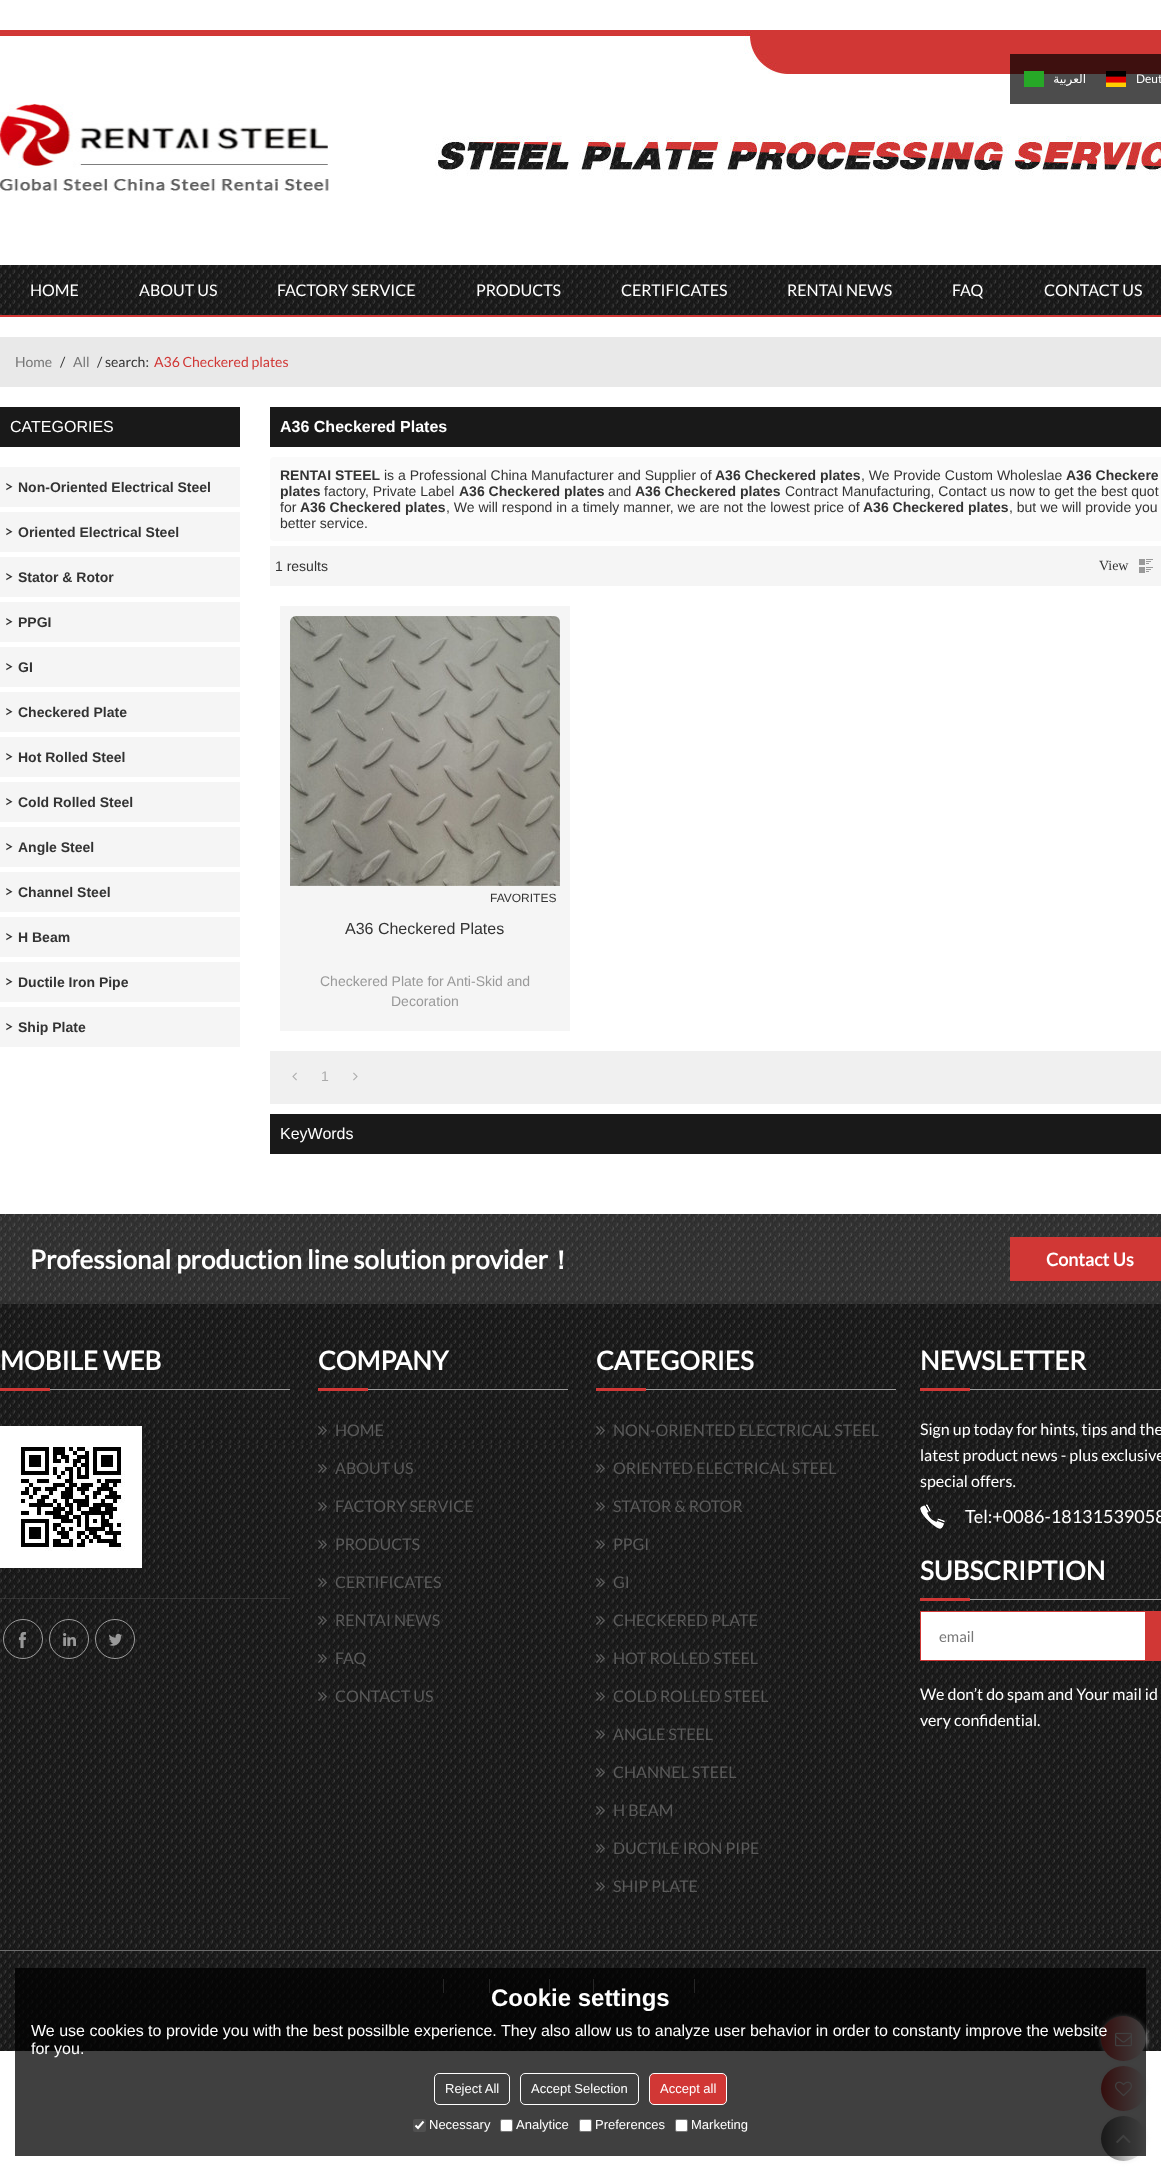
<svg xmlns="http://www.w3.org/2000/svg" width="1161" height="2171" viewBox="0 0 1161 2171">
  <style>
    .t1 { font: 12px DejaVu Sans; direction: rtl; fill: #fff; }
    .t2 { font: 12px Lato; fill: #fff; }
    .t3 { font: 16px Lato; fill: #fff; }
    .t4 { font: 14px Lato; fill: #777; }
    .t5 { font: 14px Lato; fill: #333; }
    .t6 { font: 14px Lato; fill: #d13735; }
    .t7 { font: 16px Liberation Sans; fill: #fff; }
    .t8 { font: 14px Josefin Sans; fill: #333; }
    .t9 { font: bold 14px Liberation Sans; fill: #333; }
    .t10 { font: bold 16px Liberation Sans; fill: #fff; }
    .t11 { font: 14px Liberation Sans; fill: #333; }
    .t12 { font: 14px Liberation Serif; fill: #333; }
    .t13 { font: 12px Liberation Sans; fill: #333; }
    .t14 { font: 16px Liberation Sans; fill: #333; }
    .t15 { font: 14px Liberation Sans; fill: #999; }
    .t16 { font: 14px Liberation Sans; fill: #aaa; }
    .t17 { font: bold 26px Lato; fill: #fff; }
    .t18 { font: bold 26px WenQuanYi Zen Hei; fill: #fff; }
    .t19 { font: bold 18px Lato; fill: #fff; }
    .t20 { font: 16px Lato; fill: #5a5a5a; }
    .t21 { font: 18px Lato; fill: #fff; }
    .t22 { font: 15px Lato; fill: #777; }
    .t23 { font: bold 24px Liberation Sans; fill: #fff; }
    .t24 { font: 13px Liberation Sans; fill: #fff; }
  </style>
  <defs>
    <linearGradient id="g1" gradientUnits="userSpaceOnUse" x1="1101" y1="2039" x2="1146" y2="2039"><stop offset="0" stop-color="#d13735"/><stop offset="1" stop-color="#fff"/></linearGradient>
    <linearGradient id="g2" gradientUnits="userSpaceOnUse" x1="1101" y1="2089" x2="1146" y2="2089"><stop offset="0" stop-color="#d13735"/><stop offset="1" stop-color="#fff"/></linearGradient>
    <linearGradient id="g3" gradientUnits="userSpaceOnUse" x1="1101" y1="2139" x2="1146" y2="2139"><stop offset="0" stop-color="#666"/><stop offset="1" stop-color="#fff"/></linearGradient>
  </defs>
  <rect width="100%" height="100%" fill="#fff"/>
  <image x="0" y="30" width="1161" height="44" href="images/1.png"/>
  <rect x="1010" y="54" width="151" height="50" fill="#000000b3"/>
  <rect x="1024" y="71" width="20" height="16" fill="#27a827"/>
  <text x="1086" y="83" class="t1">العربية</text>
  <image x="1106" y="71" width="20" height="16" href="images/2.png"/>
  <text x="1136" y="83" class="t2">Deut</text>
  <image x="0" y="104" width="329" height="88" href="images/3.png"/>
  <image x="435" y="136" width="726" height="40" href="images/4.png"/>
  <image x="0" y="265" width="1161" height="50" href="images/5.png"/>
  <rect x="0" y="315" width="1161" height="2" fill="#d13735"/>
  <text x="30" y="296" class="t3">HOME</text>
  <text x="139" y="296" class="t3">ABOUT US</text>
  <text x="277" y="296" class="t3">FACTORY SERVICE</text>
  <text x="476" y="296" class="t3">PRODUCTS</text>
  <text x="621" y="296" class="t3">CERTIFICATES</text>
  <text x="787" y="296" class="t3">RENTAI NEWS</text>
  <text x="952" y="296" class="t3">FAQ</text>
  <text x="1044" y="296" class="t3">CONTACT US</text>
  <rect x="0" y="337" width="1161" height="50" fill="#e9e9e9"/>
  <text x="15" y="367" class="t4">Home</text>
  <text x="60" y="367" class="t5">/</text>
  <text x="73" y="367" class="t4">All</text>
  <text x="97" y="367" class="t5">/ search:</text>
  <text x="154" y="367" class="t6">A36 Checkered plates</text>
  <rect x="0" y="407" width="240" height="40" fill="#191919"/>
  <text x="10" y="432" class="t7">CATEGORIES</text>
  <rect x="0" y="467" width="240" height="40" fill="#f5f5f5"/>
  <text x="5" y="490" class="t8">&gt;</text>
  <text x="18" y="492" class="t9">Non-Oriented Electrical Steel</text>
  <rect x="0" y="512" width="240" height="40" fill="#f5f5f5"/>
  <text x="5" y="535" class="t8">&gt;</text>
  <text x="18" y="537" class="t9">Oriented Electrical Steel</text>
  <rect x="0" y="557" width="240" height="40" fill="#f5f5f5"/>
  <text x="5" y="580" class="t8">&gt;</text>
  <text x="18" y="582" class="t9">Stator &amp; Rotor</text>
  <rect x="0" y="602" width="240" height="40" fill="#f5f5f5"/>
  <text x="5" y="625" class="t8">&gt;</text>
  <text x="18" y="627" class="t9">PPGI</text>
  <rect x="0" y="647" width="240" height="40" fill="#f5f5f5"/>
  <text x="5" y="670" class="t8">&gt;</text>
  <text x="18" y="672" class="t9">GI</text>
  <rect x="0" y="692" width="240" height="40" fill="#f5f5f5"/>
  <text x="5" y="715" class="t8">&gt;</text>
  <text x="18" y="717" class="t9">Checkered Plate</text>
  <rect x="0" y="737" width="240" height="40" fill="#f5f5f5"/>
  <text x="5" y="760" class="t8">&gt;</text>
  <text x="18" y="762" class="t9">Hot Rolled Steel</text>
  <rect x="0" y="782" width="240" height="40" fill="#f5f5f5"/>
  <text x="5" y="805" class="t8">&gt;</text>
  <text x="18" y="807" class="t9">Cold Rolled Steel</text>
  <rect x="0" y="827" width="240" height="40" fill="#f5f5f5"/>
  <text x="5" y="850" class="t8">&gt;</text>
  <text x="18" y="852" class="t9">Angle Steel</text>
  <rect x="0" y="872" width="240" height="40" fill="#f5f5f5"/>
  <text x="5" y="895" class="t8">&gt;</text>
  <text x="18" y="897" class="t9">Channel Steel</text>
  <rect x="0" y="917" width="240" height="40" fill="#f5f5f5"/>
  <text x="5" y="940" class="t8">&gt;</text>
  <text x="18" y="942" class="t9">H Beam</text>
  <rect x="0" y="962" width="240" height="40" fill="#f5f5f5"/>
  <text x="5" y="985" class="t8">&gt;</text>
  <text x="18" y="987" class="t9">Ductile Iron Pipe</text>
  <rect x="0" y="1007" width="240" height="40" fill="#f5f5f5"/>
  <text x="5" y="1030" class="t8">&gt;</text>
  <text x="18" y="1032" class="t9">Ship Plate</text>
  <rect x="270" y="407" width="891" height="40" fill="#191919"/>
  <text x="280" y="432" class="t10">A36 Checkered Plates</text>
  <rect x="270" y="457" width="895" height="84" rx="4" fill="#fafafa"/>
  <text x="280" y="480" class="t9">RENTAI STEEL</text>
  <text x="384" y="480" class="t11">is a Professional China Manufacturer and Supplier of</text>
  <text x="715" y="480" class="t9">A36 Checkered plates</text>
  <text x="861" y="480" class="t11">, We Provide Custom Wholeslae</text>
  <text x="1066" y="480" class="t9">A36 Checkere</text>
  <text x="280" y="496" class="t9">plates</text>
  <text x="324" y="496" class="t11">factory, Private Label</text>
  <text x="459" y="496" class="t9">A36 Checkered plates</text>
  <text x="608" y="496" class="t11">and</text>
  <text x="635" y="496" class="t9">A36 Checkered plates</text>
  <text x="785" y="496" class="t11">Contract Manufacturing, Contact us now to get the best quot</text>
  <text x="280" y="512" class="t11">for</text>
  <text x="300" y="512" class="t9">A36 Checkered plates</text>
  <text x="446" y="512" class="t11">, We will respond in a timely manner, we are not the lowest price of</text>
  <text x="863" y="512" class="t9">A36 Checkered plates</text>
  <text x="1009" y="512" class="t11">, but we will provide you</text>
  <text x="280" y="528" class="t11">better service.</text>
  <rect x="270" y="546" width="891" height="40" fill="#f5f5f5"/>
  <text x="275" y="571" class="t11">1 results</text>
  <text x="1099" y="570" class="t12">View</text>
  <image x="1139" y="559" width="14" height="14" href="images/6.png"/>
  <rect x="280" y="606" width="290" height="425" fill="#f5f5f5"/>
  <image x="290" y="616" width="270" height="270" href="images/7.png"/>
  <text x="490" y="902" class="t13">FAVORITES</text>
  <text x="345" y="934" class="t14">A36 Checkered Plates</text>
  <text x="320" y="986" class="t15">Checkered Plate for Anti-Skid and</text>
  <text x="391" y="1006" class="t15">Decoration</text>
  <rect x="270" y="1051" width="891" height="53" fill="#f0f0f0"/>
  <image x="292" y="1072" width="5" height="9" href="images/8.png"/>
  <text x="321" y="1081" class="t16">1</text>
  <image x="353" y="1072" width="5" height="9" href="images/9.png"/>
  <rect x="270" y="1114" width="891" height="40" fill="#191919"/>
  <text x="280" y="1139" class="t7">KeyWords</text>
  <image x="0" y="1214" width="1161" height="90" href="images/10.png"/>
  <text x="30" y="1269" class="t17">Professional production line solution provider</text>
  <text x="548" y="1269" class="t18">！</text>
  <rect x="1010" y="1237" width="151" height="44" fill="#d13735"/>
  <text x="1046" y="1266" class="t19">Contact Us</text>
  <image x="0" y="1304" width="1161" height="626" href="images/11.png"/>
  <text x="0" y="1370" class="t17">MOBILE WEB</text>
  <rect x="0" y="1388" width="50" height="3" fill="#d13735"/>
  <rect x="50" y="1389" width="240" height="1" fill="#a0a0a0"/>
  <rect x="0" y="1598" width="290" height="1" fill="#ffffff1a"/>
  <rect x="2.5" y="1428.5" width="137" height="137" fill="none" stroke="#fff" stroke-width="5"/>
  <image x="5" y="1431" width="132" height="132" href="images/12.png"/>
  <image x="19" y="1632" width="7" height="16" href="images/13.png"/>
  <circle cx="23" cy="1639" r="19.5" fill="none" stroke="#9c9c9c"/>
  <image x="63" y="1633" width="13" height="13" href="images/14.png"/>
  <circle cx="69" cy="1639" r="19.5" fill="none" stroke="#9c9c9c"/>
  <image x="109" y="1633" width="13" height="13" href="images/15.png"/>
  <circle cx="115" cy="1639" r="19.5" fill="none" stroke="#9c9c9c"/>
  <text x="318" y="1370" class="t17">COMPANY</text>
  <rect x="318" y="1388" width="50" height="3" fill="#d13735"/>
  <rect x="368" y="1389" width="200" height="1" fill="#a0a0a0"/>
  <image x="318" y="1426" width="9" height="9" href="images/16.png"/>
  <text x="335" y="1436" class="t20">HOME</text>
  <image x="318" y="1464" width="9" height="9" href="images/17.png"/>
  <text x="335" y="1474" class="t20">ABOUT US</text>
  <image x="318" y="1502" width="9" height="9" href="images/18.png"/>
  <text x="335" y="1512" class="t20">FACTORY SERVICE</text>
  <image x="318" y="1540" width="9" height="9" href="images/19.png"/>
  <text x="335" y="1550" class="t20">PRODUCTS</text>
  <image x="318" y="1578" width="9" height="9" href="images/20.png"/>
  <text x="335" y="1588" class="t20">CERTIFICATES</text>
  <image x="318" y="1616" width="9" height="9" href="images/21.png"/>
  <text x="335" y="1626" class="t20">RENTAI NEWS</text>
  <image x="318" y="1654" width="9" height="9" href="images/22.png"/>
  <text x="335" y="1664" class="t20">FAQ</text>
  <image x="318" y="1692" width="9" height="9" href="images/23.png"/>
  <text x="335" y="1702" class="t20">CONTACT US</text>
  <text x="596" y="1370" class="t17">CATEGORIES</text>
  <rect x="596" y="1388" width="50" height="3" fill="#d13735"/>
  <rect x="646" y="1389" width="250" height="1" fill="#a0a0a0"/>
  <image x="596" y="1426" width="9" height="9" href="images/24.png"/>
  <text x="613" y="1436" class="t20">NON-ORIENTED ELECTRICAL STEEL</text>
  <image x="596" y="1464" width="9" height="9" href="images/25.png"/>
  <text x="613" y="1474" class="t20">ORIENTED ELECTRICAL STEEL</text>
  <image x="596" y="1502" width="9" height="9" href="images/26.png"/>
  <text x="613" y="1512" class="t20">STATOR &amp; ROTOR</text>
  <image x="596" y="1540" width="9" height="9" href="images/27.png"/>
  <text x="613" y="1550" class="t20">PPGI</text>
  <image x="596" y="1578" width="9" height="9" href="images/28.png"/>
  <text x="613" y="1588" class="t20">GI</text>
  <image x="596" y="1616" width="9" height="9" href="images/29.png"/>
  <text x="613" y="1626" class="t20">CHECKERED PLATE</text>
  <image x="596" y="1654" width="9" height="9" href="images/30.png"/>
  <text x="613" y="1664" class="t20">HOT ROLLED STEEL</text>
  <image x="596" y="1692" width="9" height="9" href="images/31.png"/>
  <text x="613" y="1702" class="t20">COLD ROLLED STEEL</text>
  <image x="596" y="1730" width="9" height="9" href="images/32.png"/>
  <text x="613" y="1740" class="t20">ANGLE STEEL</text>
  <image x="596" y="1768" width="9" height="9" href="images/33.png"/>
  <text x="613" y="1778" class="t20">CHANNEL STEEL</text>
  <image x="596" y="1806" width="9" height="9" href="images/34.png"/>
  <text x="613" y="1816" class="t20">H BEAM</text>
  <image x="596" y="1844" width="9" height="9" href="images/35.png"/>
  <text x="613" y="1854" class="t20">DUCTILE IRON PIPE</text>
  <image x="596" y="1882" width="9" height="9" href="images/36.png"/>
  <text x="613" y="1892" class="t20">SHIP PLATE</text>
  <text x="920" y="1370" class="t17">NEWSLETTER</text>
  <rect x="920" y="1388" width="50" height="3" fill="#d13735"/>
  <rect x="970" y="1389" width="191" height="1" fill="#a0a0a0"/>
  <text x="920" y="1435" class="t3">Sign up today for hints, tips and the</text>
  <text x="920" y="1461" class="t3">latest product news - plus exclusive</text>
  <text x="920" y="1487" class="t3">special offers.</text>
  <image x="920" y="1504" width="25" height="25" href="images/37.png"/>
  <text x="965" y="1523" class="t21">Tel:+0086-18131539058</text>
  <text x="920" y="1580" class="t17">SUBSCRIPTION</text>
  <rect x="920" y="1598" width="50" height="3" fill="#d13735"/>
  <rect x="970" y="1599" width="191" height="1" fill="#a0a0a0"/>
  <rect x="921" y="1612" width="224" height="48" fill="#fff"/>
  <rect x="920.5" y="1611.5" width="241" height="49" fill="none" stroke="#d13735"/>
  <text x="939" y="1642" class="t22">email</text>
  <rect x="1145" y="1612" width="16" height="48" fill="#d13735"/>
  <text x="920" y="1700" class="t3">We don’t do spam and Your mail id</text>
  <text x="920" y="1726" class="t3">very confidential.</text>
  <image x="0" y="1930" width="1161" height="121" href="images/38.png"/>
  <rect x="0" y="1950" width="1161" height="1" fill="#6c6c6c"/>
  <rect x="443" y="1979" width="1" height="14" fill="#969696"/>
  <rect x="489" y="1979" width="1" height="14" fill="#969696"/>
  <rect x="549" y="1979" width="1" height="14" fill="#969696"/>
  <rect x="593" y="1979" width="1" height="14" fill="#969696"/>
  <rect x="694" y="1979" width="1" height="14" fill="#969696"/>
  <rect x="1101" y="2016" width="45" height="45" rx="22.5" fill="#eee" filter="blur(2.5px)"/>
  <circle cx="1123.5" cy="2038.5" r="22.5" fill="url(#g1)"/>
  <image x="1115" y="2032" width="17" height="15" href="images/39.png"/>
  <rect x="1101" y="2066" width="45" height="45" rx="22.5" fill="#eee" filter="blur(2.5px)"/>
  <circle cx="1123.5" cy="2088.5" r="22.5" fill="url(#g2)"/>
  <image x="1115" y="2081" width="17" height="16" href="images/40.png"/>
  <rect x="1101" y="2116" width="45" height="45" rx="22.5" fill="#eee" filter="blur(2.5px)"/>
  <circle cx="1123.5" cy="2138.5" r="22.5" fill="url(#g3)"/>
  <image x="1116" y="2134" width="15" height="9" href="images/41.png"/>
  <rect x="15" y="1968" width="1131" height="188" fill="#000000bf"/>
  <text x="491" y="2006" class="t23">Cookie settings</text>
  <text x="31" y="2036" class="t7">We use cookies to provide you with the best possilble experience. They also allow us to analyze user behavior in order to constanty improve the website</text>
  <text x="31" y="2054" class="t7">for you.</text>
  <rect x="434.5" y="2073.5" width="75" height="31" rx="4.5" fill="none" stroke="#fff"/>
  <text x="445" y="2093" class="t24">Reject All</text>
  <rect x="520.5" y="2073.5" width="118" height="31" rx="4.5" fill="none" stroke="#fff"/>
  <text x="531" y="2093" class="t24">Accept Selection</text>
  <rect x="649.5" y="2073.5" width="77" height="31" rx="4.5" fill="#d13735" stroke="#fff"/>
  <text x="660" y="2093" class="t24">Accept all</text>
  <rect x="413" y="2119" width="13" height="13" rx="2" fill="#505050"/>
  <path d="M415.5 2125.5L418 2128L423.5 2121.5" fill="none" stroke="#fff" stroke-width="2.1"/>
  <text x="429" y="2129" class="t24">Necessary</text>
  <rect x="500.5" y="2119.5" width="12" height="12" rx="1.5" fill="#fff" stroke="#767676"/>
  <text x="516" y="2129" class="t24">Analytice</text>
  <rect x="579.5" y="2119.5" width="12" height="12" rx="1.5" fill="#fff" stroke="#767676"/>
  <text x="595" y="2129" class="t24">Preferences</text>
  <rect x="675.5" y="2119.5" width="12" height="12" rx="1.5" fill="#fff" stroke="#767676"/>
  <text x="691" y="2129" class="t24">Marketing</text>
</svg>
